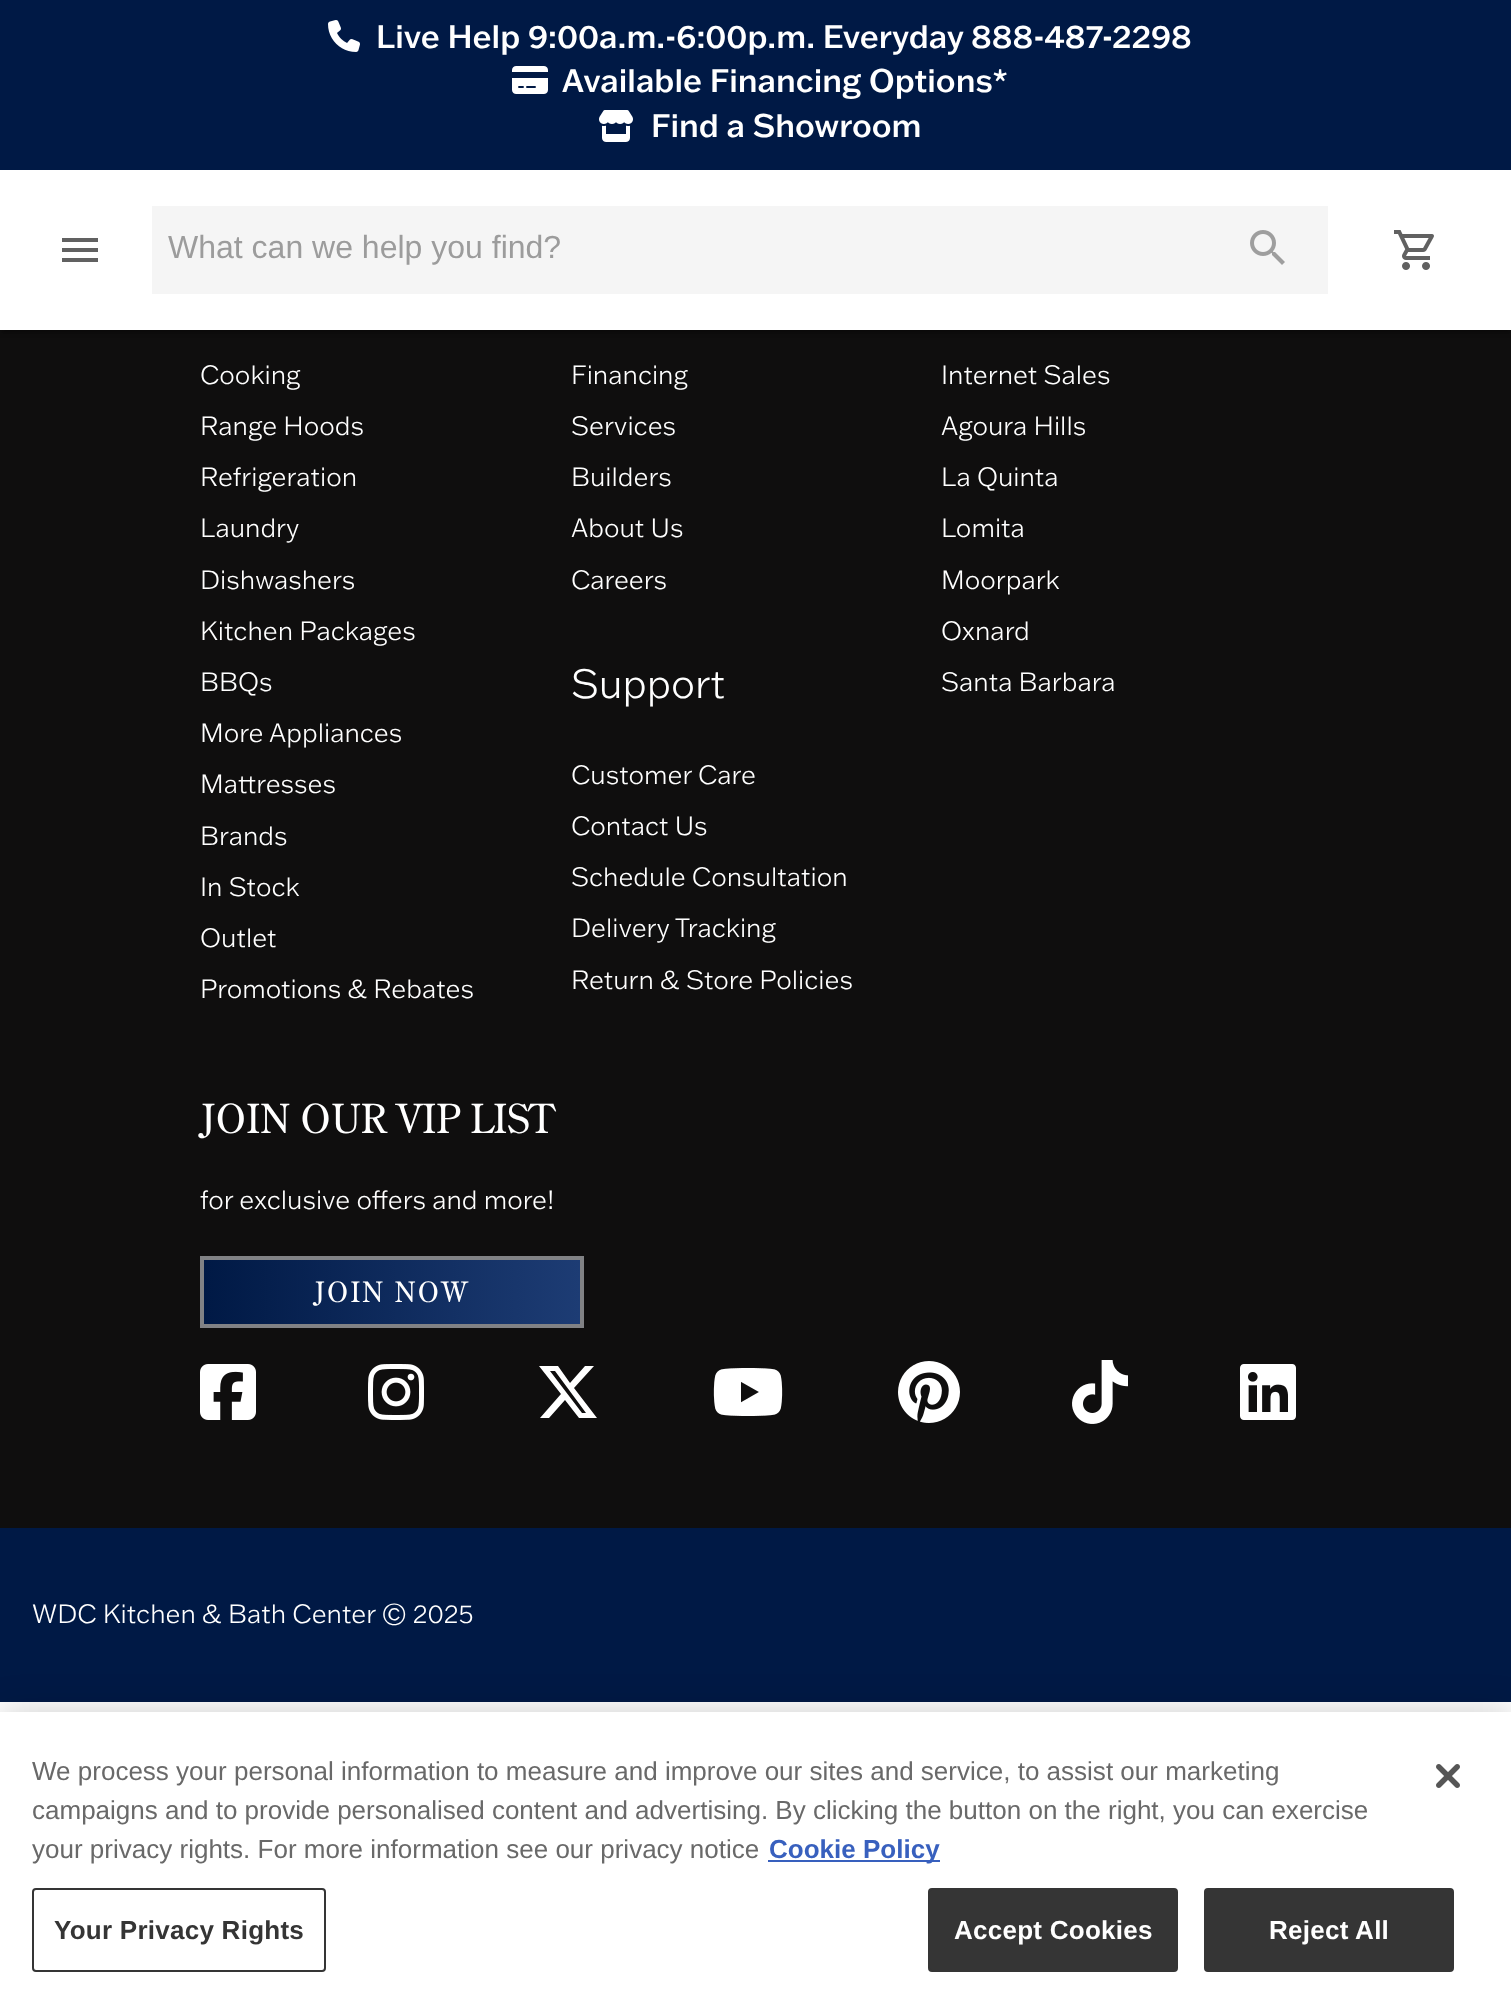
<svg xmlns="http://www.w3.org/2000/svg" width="1511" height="2012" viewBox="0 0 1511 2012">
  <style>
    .t1 { font: 500 32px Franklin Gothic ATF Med; fill: #fff; }
    .t2 { font: 32px Liberation Sans; fill: #9c9c9c; }
    .t3 { font: 300 25.9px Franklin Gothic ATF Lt; fill: #fff; }
    .t4 { font: 300 40px Franklin Gothic ATF Lt; fill: #fff; }
    .t5 { font: 40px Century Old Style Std; fill: #fff; }
    .t6 { font: 28px Century Old Style Std; letter-spacing: 2px; fill: #fff; }
    .t7 { font: 26.02px Liberation Sans; fill: #696969; }
    .t8 { font: bold 26.02px Liberation Sans; fill: #3860be; }
    .t9 { font: bold 26.02px Liberation Sans; letter-spacing: 0.25px; fill: #353535; }
    .t10 { font: bold 26.02px Liberation Sans; letter-spacing: 0.25px; fill: #fff; }
  </style>
  <defs>
    <linearGradient id="g1" gradientUnits="userSpaceOnUse" x1="204" y1="1292" x2="580" y2="1292"><stop offset="0" stop-color="#001945"/><stop offset="1" stop-color="#1d3c74"/></linearGradient>
  </defs>
  <rect width="100%" height="100%" fill="#fff"/>
  <rect x="0" y="330" width="1511" height="1198" fill="#0f0e0e"/>
  <rect x="0" y="4" width="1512" height="330" fill="#00000024" filter="blur(2px)"/>
  <rect x="4" y="10" width="1504" height="322" fill="#00000033" filter="blur(1px)"/>
  <rect x="0" y="170" width="1511" height="160" fill="#fff"/>
  <rect x="0" y="0" width="1511" height="170" fill="#001945"/>
  <image x="328" y="20" width="32" height="32" href="images/1.png"/>
  <text x="376" y="48" class="t1">Live Help 9:00a.m.-6:00p.m. Everyday 888-487-2298</text>
  <image x="512" y="66" width="36" height="28" href="images/2.png"/>
  <text x="562" y="92" class="t1">Available Financing Options*</text>
  <image x="599" y="110" width="34" height="32" href="images/3.png"/>
  <text x="651" y="137" class="t1">Find a Showroom</text>
  <path d="M62 262H98V258H62ZM62 252H98V248H62ZM62 238V242H98V238Z" fill="#616161"/>
  <rect x="152" y="206" width="1176" height="88" fill="#f5f5f5"/>
  <text x="168" y="258" class="t2">What can we help you find?</text>
  <image x="1250" y="230" width="35" height="35" href="images/4.png"/>
  <image x="1394" y="230" width="40" height="40" href="images/5.png"/>
  <text x="200" y="384" class="t3">Cooking</text>
  <text x="200" y="435" class="t3">Range Hoods</text>
  <text x="200" y="486" class="t3">Refrigeration</text>
  <text x="200" y="537" class="t3">Laundry</text>
  <text x="200" y="589" class="t3">Dishwashers</text>
  <text x="200" y="640" class="t3">Kitchen Packages</text>
  <text x="200" y="691" class="t3">BBQs</text>
  <text x="200" y="742" class="t3">More Appliances</text>
  <text x="200" y="793" class="t3">Mattresses</text>
  <text x="200" y="845" class="t3">Brands</text>
  <text x="200" y="896" class="t3">In Stock</text>
  <text x="200" y="947" class="t3">Outlet</text>
  <text x="200" y="998" class="t3">Promotions &amp; Rebates</text>
  <text x="571" y="384" class="t3">Financing</text>
  <text x="571" y="435" class="t3">Services</text>
  <text x="571" y="486" class="t3">Builders</text>
  <text x="571" y="537" class="t3">About Us</text>
  <text x="571" y="589" class="t3">Careers</text>
  <text x="571" y="698" class="t4">Support</text>
  <text x="571" y="784" class="t3">Customer Care</text>
  <text x="571" y="835" class="t3">Contact Us</text>
  <text x="571" y="886" class="t3">Schedule Consultation</text>
  <text x="571" y="937" class="t3">Delivery Tracking</text>
  <text x="571" y="989" class="t3">Return &amp; Store Policies</text>
  <text x="941" y="384" class="t3">Internet Sales</text>
  <text x="941" y="435" class="t3">Agoura Hills</text>
  <text x="941" y="486" class="t3">La Quinta</text>
  <text x="941" y="537" class="t3">Lomita</text>
  <text x="941" y="589" class="t3">Moorpark</text>
  <text x="941" y="640" class="t3">Oxnard</text>
  <text x="941" y="691" class="t3">Santa Barbara</text>
  <text x="200" y="1133" class="t5">JOIN OUR VIP LIST</text>
  <text x="200" y="1209" class="t3">for exclusive offers and more!</text>
  <rect x="204" y="1260" width="376" height="64" fill="url(#g1)"/>
  <rect x="202" y="1258" width="380" height="68" fill="none" stroke="#818285" stroke-width="4"/>
  <text x="314" y="1302" class="t6">JOIN NOW</text>
  <image x="200" y="1364" width="56" height="56" href="images/6.png"/>
  <image x="368" y="1364" width="56" height="56" href="images/7.png"/>
  <path d="M585 1366H594H585H594L574 1388L597 1418H579L565 1400L549 1418H540L561 1394L539 1366H558L570 1383ZM582 1413H586H582H586L555 1371H550Z" fill="#fff"/>
  <image x="713" y="1368" width="70" height="48" href="images/8.png"/>
  <image x="898" y="1361" width="62" height="62" href="images/9.png"/>
  <image x="1072" y="1360" width="56" height="64" href="images/10.png"/>
  <image x="1240" y="1364" width="56" height="56" href="images/11.png"/>
  <rect x="0" y="1528" width="1511" height="174" fill="#001945"/>
  <text x="32" y="1623" class="t3">WDC Kitchen &amp; Bath Center © 2025</text>
  <rect x="0" y="1712" width="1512" height="300" fill="#00000033" filter="blur(18px)"/>
  <rect x="0" y="1712" width="1511" height="300" fill="#fff"/>
  <text x="32" y="1780" class="t7">We process your personal information to measure and improve our sites and service, to assist our marketing</text>
  <text x="32" y="1819" class="t7">campaigns and to provide personalised content and advertising. By clicking the button on the right, you can exercise</text>
  <text x="32" y="1858" class="t7">your privacy rights. For more information see our privacy notice</text>
  <rect x="768" y="1860" width="172" height="2" fill="#3860be"/>
  <text x="769" y="1858" class="t8">Cookie Policy</text>
  <rect x="33" y="1889" width="292" height="82" rx="3" fill="none" stroke="#353535" stroke-width="2"/>
  <text x="54" y="1939" class="t9">Your Privacy Rights</text>
  <rect x="929" y="1889" width="248" height="82" rx="3" fill="#353535" stroke="#353535" stroke-width="2"/>
  <text x="954" y="1939" class="t10">Accept Cookies</text>
  <rect x="1205" y="1889" width="248" height="82" rx="3" fill="#353535" stroke="#353535" stroke-width="2"/>
  <text x="1269" y="1939" class="t10">Reject All</text>
  <image x="1436" y="1764" width="24" height="24" href="images/12.png"/>
</svg>
